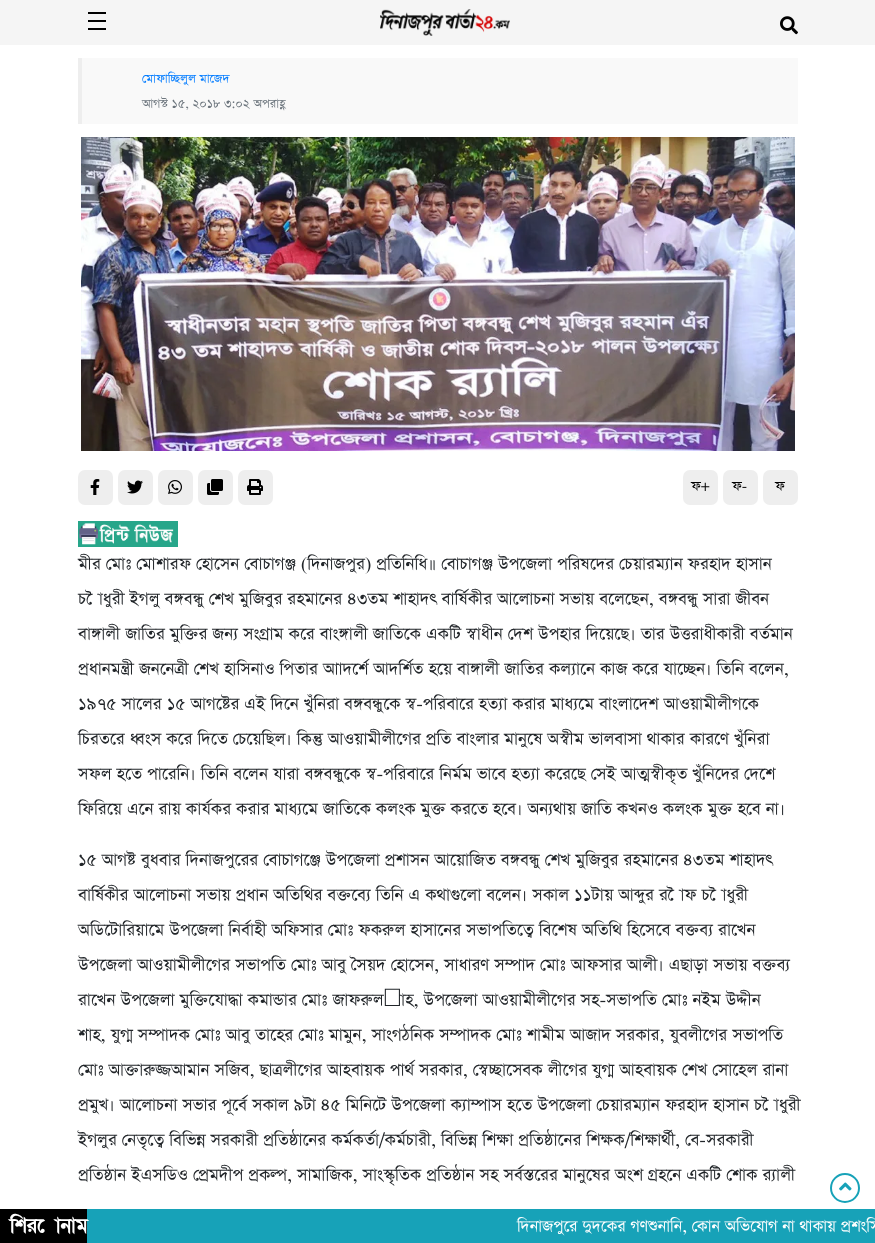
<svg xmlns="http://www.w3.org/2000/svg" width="875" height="1243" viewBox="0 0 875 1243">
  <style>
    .t1 { font: 14.5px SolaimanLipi; fill: #007bff; }
    .t2 { font: 14.5px SolaimanLipi; fill: #6c757d; }
    .t3 { font: 16px SolaimanLipi; fill: #000; }
    .t4 { font: 20px SolaimanLipi; fill: #212529; }
    .t5 { font: bold 20px SolaimanLipi; fill: #fff; }
    .t6 { font: 19px SolaimanLipi; fill: #fff; }
  </style>
  <rect width="100%" height="100%" fill="#fff"/>
  <rect x="0" y="0" width="875" height="45" fill="#f5f5f5"/>
  <rect x="88" y="12" width="18" height="2" fill="#000"/>
  <rect x="88" y="20" width="18" height="2" fill="#000"/>
  <rect x="88" y="28" width="18" height="2" fill="#000"/>
  <image x="380" y="9" width="130" height="27" href="images/1.png"/>
  <image x="780" y="16" width="18" height="19" href="images/2.png"/>
  <circle cx="845" cy="1188" r="14" fill="none" stroke="#17a2b8" stroke-width="2"/>
  <image x="839" y="1182" width="13" height="9" href="images/3.png"/>
  <rect x="82" y="58" width="716" height="66" fill="#f9f9f9"/>
  <rect x="78" y="58" width="4" height="66" fill="#eee"/>
  <text x="142" y="83" class="t1">মোফাচ্ছিলুল মাজেদ</text>
  <text x="142" y="108" class="t2">আগস্ট ১৫, ২০১৮ ৩:০২ অপরাহ্ণ</text>
  <image x="81" y="137" width="714" height="314" href="images/4.png"/>
  <rect x="78" y="470" width="35" height="35" rx="7" fill="#eee"/>
  <image x="90" y="479" width="10" height="16" href="images/5.png"/>
  <rect x="118" y="470" width="35" height="35" rx="7" fill="#eee"/>
  <image x="127" y="480" width="16" height="14" href="images/6.png"/>
  <rect x="158" y="470" width="35" height="35" rx="7" fill="#eee"/>
  <image x="168" y="480" width="14" height="14" href="images/7.png"/>
  <rect x="198" y="470" width="35" height="35" rx="7" fill="#eee"/>
  <image x="207" y="479" width="16" height="16" href="images/8.png"/>
  <rect x="238" y="470" width="35" height="35" rx="7" fill="#eee"/>
  <image x="247" y="479" width="16" height="16" href="images/9.png"/>
  <rect x="683" y="470" width="35" height="35" rx="7" fill="#eee"/>
  <text x="691" y="491" class="t3">ফ+</text>
  <rect x="723" y="470" width="35" height="35" rx="7" fill="#eee"/>
  <text x="732" y="491" class="t3">ফ-</text>
  <rect x="763" y="470" width="35" height="35" rx="7" fill="#eee"/>
  <text x="775" y="491" class="t3">ফ</text>
  <image x="78" y="521" width="100" height="26" href="images/10.png"/>
  <text x="78" y="570" class="t4">মীর মোঃ মোশারফ হোসেন বোচাগঞ্জ (দিনাজপুর) প্রতিনিধি॥ বোচাগঞ্জ উপজেলা পরিষদের চেয়ারম্যান ফরহাদ হাসান</text>
  <text x="78" y="605" class="t4">চৌধুরী ইগলু বঙ্গবন্ধু শেখ মুজিবুর রহমানের ৪৩তম শাহাদৎ বার্ষিকীর আলোচনা সভায় বলেছেন, বঙ্গবন্ধু সারা জীবন</text>
  <text x="78" y="640" class="t4">বাঙ্গালী জাতির মুক্তির জন্য সংগ্রাম করে বাংঙ্গালী জাতিকে একটি স্বাধীন দেশ উপহার দিয়েছে। তার উত্তরাধীকারী বর্তমান</text>
  <text x="78" y="675" class="t4">প্রধানমন্ত্রী জননেত্রী শেখ হাসিনাও পিতার আাদর্শে আদর্শিত হয়ে বাঙ্গালী জাতির কল্যানে কাজ করে যাচ্ছেন। তিনি বলেন,</text>
  <text x="78" y="710" class="t4">১৯৭৫ সালের ১৫ আগষ্টের এই দিনে খুঁনিরা বঙ্গবন্ধুকে স্ব-পরিবারে হত্যা করার মাধ্যমে বাংলাদেশ আওয়ামীলীগকে</text>
  <text x="78" y="745" class="t4">চিরতরে ধ্বংস করে দিতে চেয়েছিল। কিন্তু আওয়ামীলীগের প্রতি বাংলার মানুষে অস্বীম ভালবাসা থাকার কারণে খুঁনিরা</text>
  <text x="78" y="780" class="t4">সফল হতে পারেনি। তিনি বলেন যারা বঙ্গবন্ধুকে স্ব-পরিবারে নির্মম ভাবে হত্যা করেছে সেই আত্মস্বীকৃত খুঁনিদের দেশে</text>
  <text x="78" y="815" class="t4">ফিরিয়ে এনে রায় কার্যকর করার মাধ্যমে জাতিকে কলংক মুক্ত করতে হবে। অন্যথায় জাতি কখনও কলংক মুক্ত হবে না।</text>
  <text x="78" y="866" class="t4">১৫ আগষ্ট বুধবার দিনাজপুরের বোচাগঞ্জে উপজেলা প্রশাসন আয়োজিত বঙ্গবন্ধু শেখ মুজিবুর রহমানের ৪৩তম শাহাদৎ</text>
  <text x="78" y="901" class="t4">বার্ষিকীর আলোচনা সভায় প্রধান অতিথির বক্তব্যে তিনি এ কথাগুলো বলেন। সকাল ১১টায় আব্দুর রৌফ চৌধুরী</text>
  <text x="78" y="936" class="t4">অডিটোরিয়ামে উপজেলা নির্বাহী অফিসার মোঃ ফকরুল হাসানের সভাপতিত্বে বিশেষ অতিথি হিসেবে বক্তব্য রাখেন</text>
  <text x="78" y="971" class="t4">উপজেলা আওয়ামীলীগের সভাপতি মোঃ আবু সৈয়দ হোসেন, সাধারণ সম্পাদ মোঃ আফসার আলী। এছাড়া সভায় বক্তব্য</text>
  <text x="78" y="1006" class="t4">রাখেন উপজেলা মুক্তিযোদ্ধা কমান্ডার মোঃ জাফরুল¬াহ, উপজেলা আওয়ামীলীগের সহ-সভাপতি মোঃ নইম উদ্দীন</text>
  <text x="78" y="1041" class="t4">শাহ, যুগ্ম সম্পাদক মোঃ আবু তাহের মোঃ মামুন, সাংগঠনিক সম্পাদক মোঃ শামীম আজাদ সরকার, যুবলীগের সভাপতি</text>
  <text x="78" y="1076" class="t4">মোঃ আক্তারুজ্জআমান সজিব, ছাত্রলীগের আহবায়ক পার্থ সরকার, স্বেচ্ছাসেবক লীগের যুগ্ম আহবায়ক শেখ সোহেল রানা</text>
  <text x="78" y="1111" class="t4">প্রমুখ। আলোচনা সভার পূর্বে সকাল ৯টা ৪৫ মিনিটে উপজেলা ক্যাম্পাস হতে উপজেলা চেয়ারম্যান ফরহাদ হাসান চৌধুরী</text>
  <text x="78" y="1146" class="t4">ইগলুর নেতৃত্বে বিভিন্ন সরকারী প্রতিষ্ঠানের কর্মকর্তা/কর্মচারী, বিভিন্ন শিক্ষা প্রতিষ্ঠানের শিক্ষক/শিক্ষার্থী, বে-সরকারী</text>
  <text x="78" y="1181" class="t4">প্রতিষ্ঠান ইএসডিও প্রেমদীপ প্রকল্প, সামাজিক, সাংস্কৃতিক প্রতিষ্ঠান সহ সর্বস্তরের মানুষের অংশ গ্রহনে একটি শোক র‌্যালী</text>
  <rect x="87" y="1209" width="788" height="34" fill="#17a2b8"/>
  <rect x="0" y="1209" width="87" height="34" fill="#000"/>
  <text x="10" y="1232" class="t5">শিরোনাম</text>
  <text x="517" y="1232" class="t6">দিনাজপুরে দুদকের গণশুনানি, কোন অভিযোগ না থাকায় প্রশংসি</text>
</svg>
